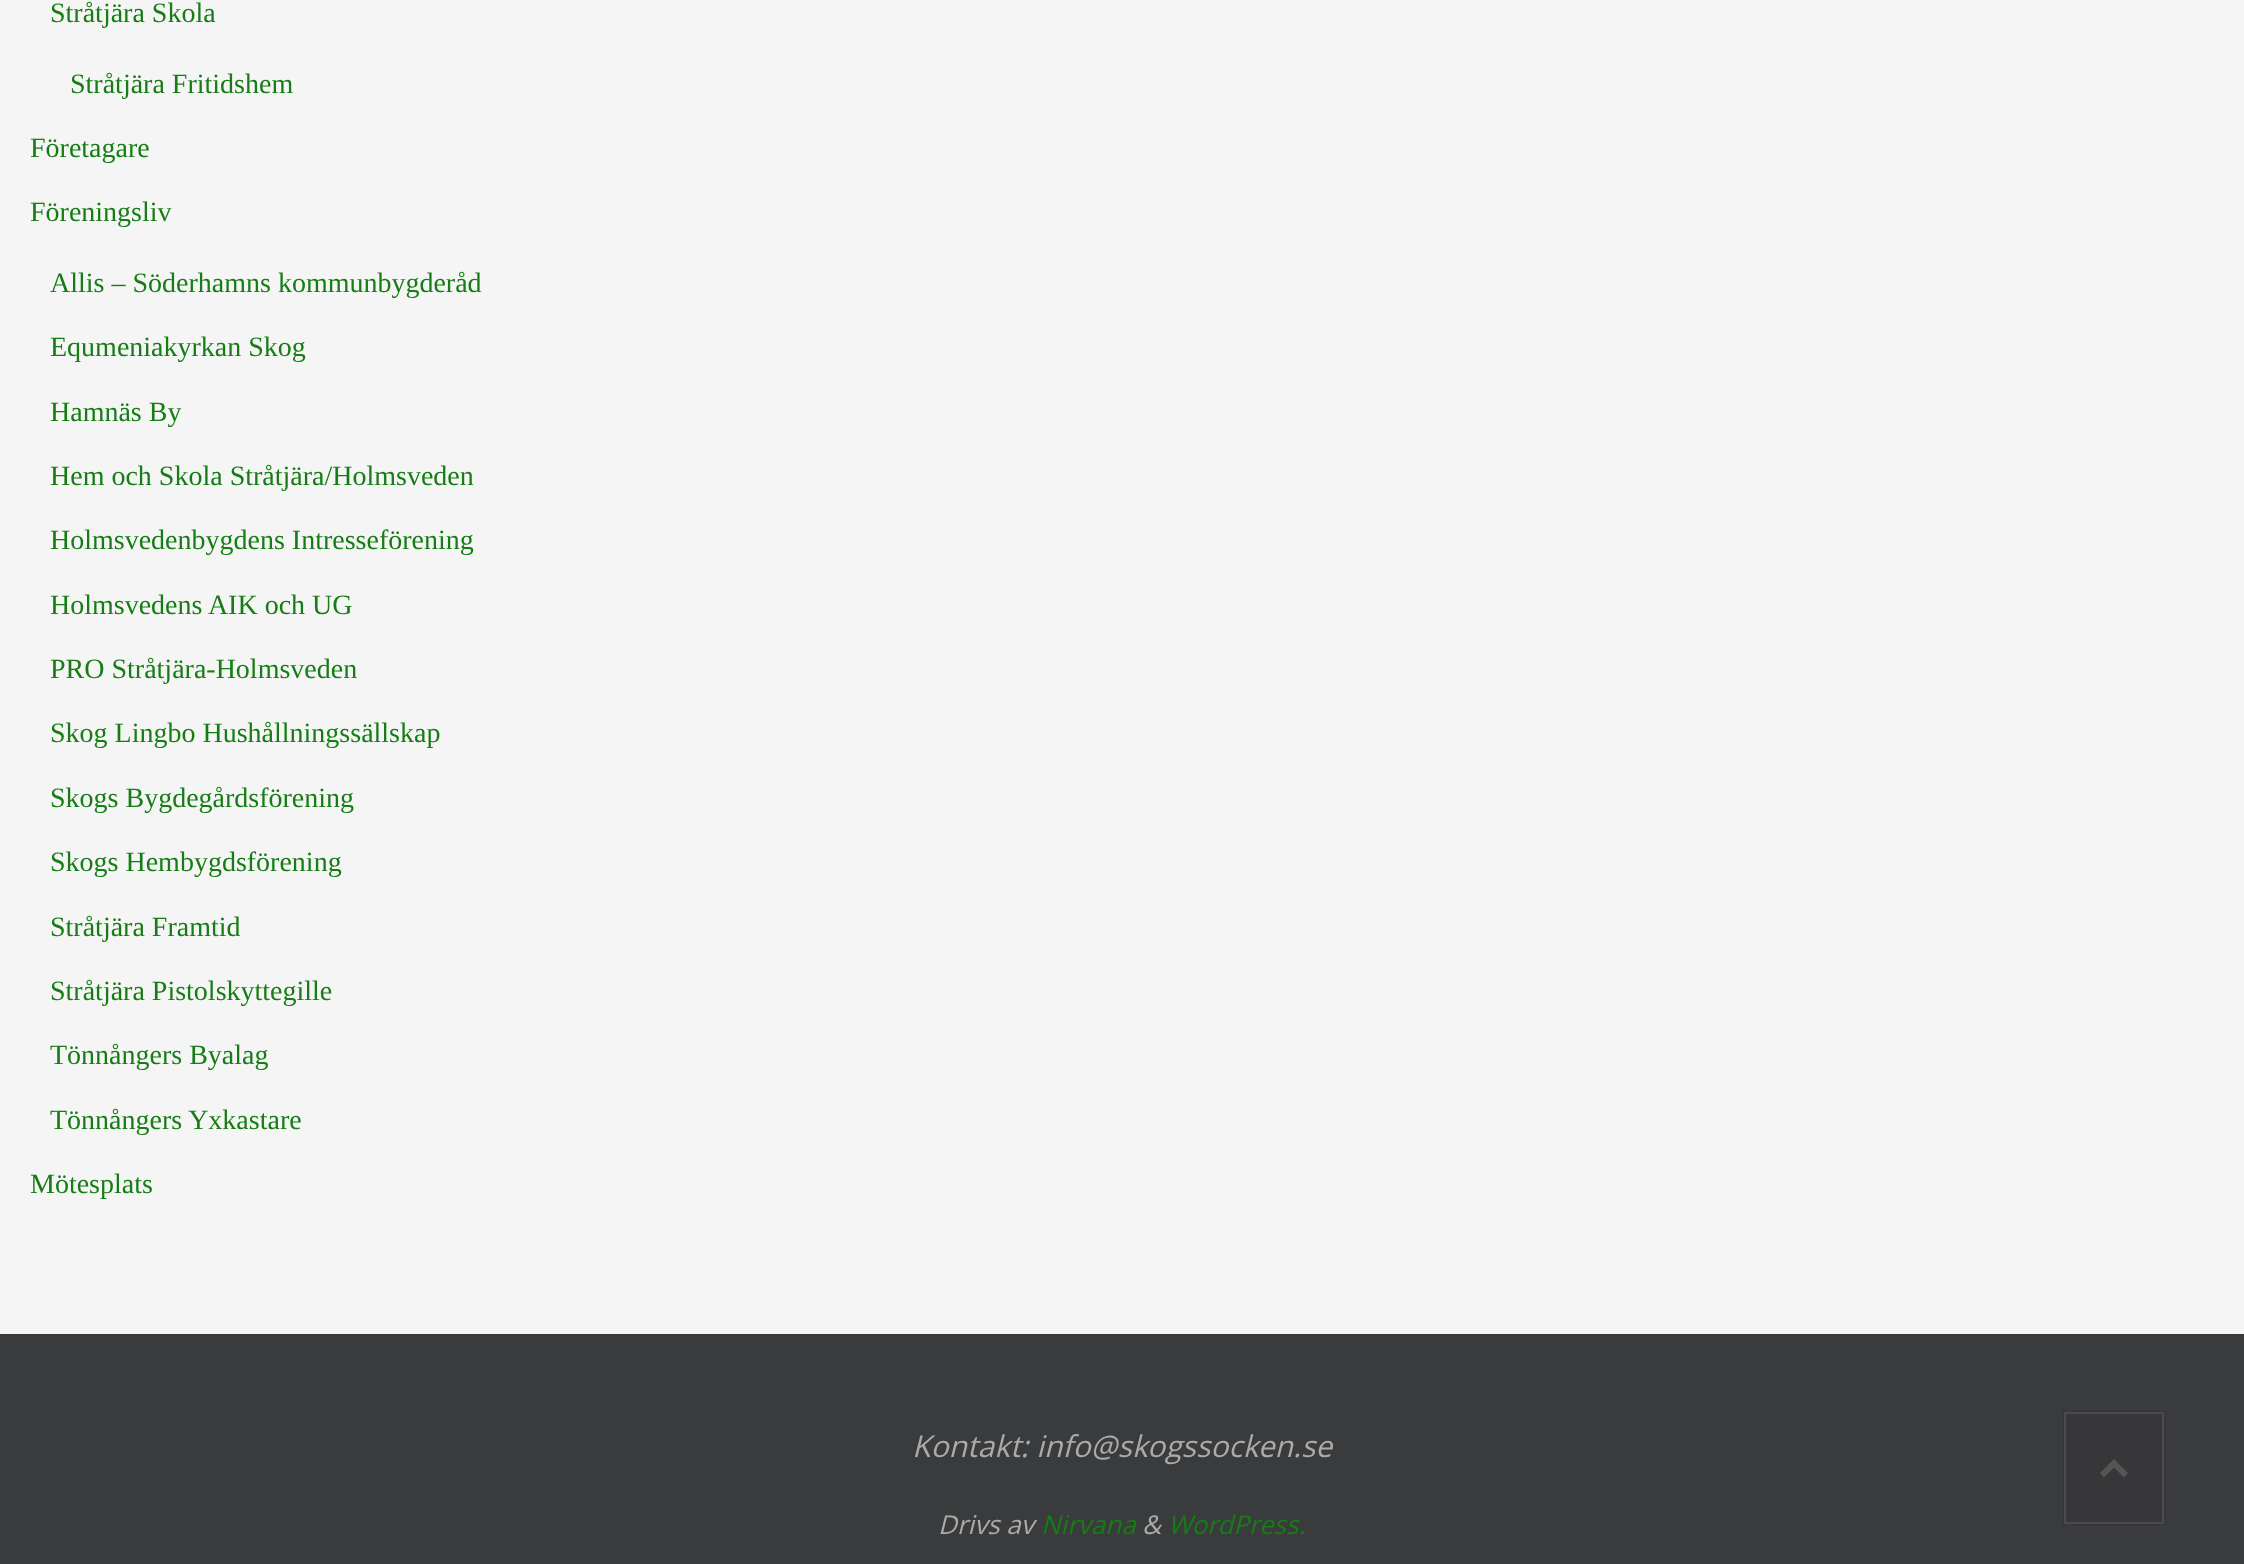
<svg xmlns="http://www.w3.org/2000/svg" width="2244" height="1564" viewBox="0 0 2244 1564">
  <style>
    .t1 { font: 28px Liberation Serif; fill: #167d15; }
    .t2 { font: italic 30px Open Sans; fill: #aaa; }
    .t3 { font: italic 26px Open Sans; fill: #aaa; }
    .t4 { font: italic 26px Open Sans; fill: #167d15; }
  </style>
  <rect width="100%" height="100%" fill="#f5f5f5"/>
  <text x="50" y="22" class="t1">Stråtjära Skola</text>
  <text x="70" y="93" class="t1">Stråtjära Fritidshem</text>
  <text x="30" y="157" class="t1">Företagare</text>
  <text x="30" y="221" class="t1">Föreningsliv</text>
  <text x="50" y="292" class="t1">Allis – Söderhamns kommunbygderåd</text>
  <text x="50" y="356" class="t1">Equmeniakyrkan Skog</text>
  <text x="50" y="421" class="t1">Hamnäs By</text>
  <text x="50" y="485" class="t1">Hem och Skola Stråtjära/Holmsveden</text>
  <text x="50" y="549" class="t1">Holmsvedenbygdens Intresseförening</text>
  <text x="50" y="614" class="t1">Holmsvedens AIK och UG</text>
  <text x="50" y="678" class="t1">PRO Stråtjära-Holmsveden</text>
  <text x="50" y="742" class="t1">Skog Lingbo Hushållningssällskap</text>
  <text x="50" y="807" class="t1">Skogs Bygdegårdsförening</text>
  <text x="50" y="871" class="t1">Skogs Hembygdsförening</text>
  <text x="50" y="936" class="t1">Stråtjära Framtid</text>
  <text x="50" y="1000" class="t1">Stråtjära Pistolskyttegille</text>
  <text x="50" y="1064" class="t1">Tönnångers Byalag</text>
  <text x="50" y="1129" class="t1">Tönnångers Yxkastare</text>
  <text x="30" y="1193" class="t1">Mötesplats</text>
  <rect x="0" y="1334" width="2244" height="230" fill="#3a3b3d"/>
  <text x="912" y="1457" class="t2">Kontakt: info@skogssocken.se</text>
  <text x="938" y="1534" class="t3">Drivs av</text>
  <text x="1041" y="1534" class="t4">Nirvana</text>
  <text x="1142" y="1534" class="t3">&amp;</text>
  <text x="1168" y="1534" class="t4">WordPress.</text>
  <rect x="2064" y="1412" width="100" height="112" fill="#00000047" filter="blur(1px)"/>
  <rect x="2065" y="1413" width="98" height="110" fill="#373739" stroke="#4b4b4d" stroke-width="2"/>
  <path d="M2100 1473L2114 1459L2128 1473L2124 1477.5L2114 1467.5L2104 1477.5Z" fill="#555"/>
</svg>
